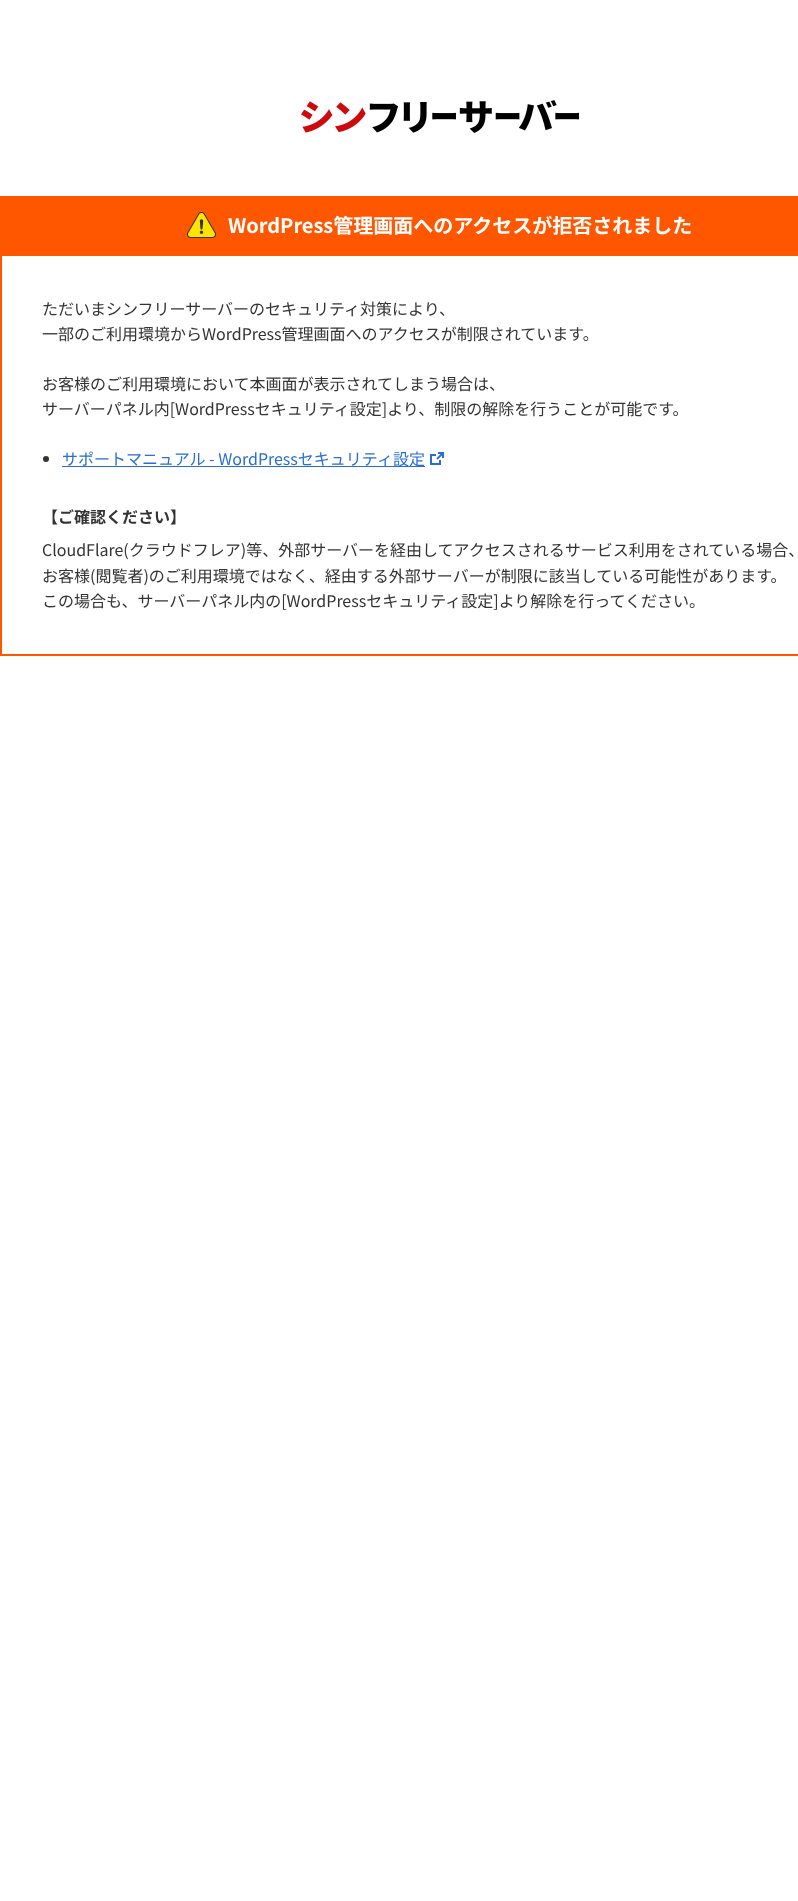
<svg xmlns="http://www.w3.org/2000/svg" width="798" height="1901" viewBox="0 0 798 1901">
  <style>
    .t1 { font: bold 20px Noto Sans JP; fill: #fff; }
    .t2 { font: 16px Noto Sans JP; fill: #333; }
    .t3 { font: 16px Noto Sans JP; fill: #286ed3; }
    .t4 { font: bold 16px Noto Sans JP; fill: #333; }
  </style>
  <rect width="100%" height="100%" fill="#fff"/>
  <image x="301" y="100" width="279" height="33" href="images/1.png"/>
  <rect x="0" y="196" width="798" height="58" fill="#ff5700"/>
  <image x="187" y="212" width="29" height="26" href="images/2.png"/>
  <text x="228" y="233" class="t1">WordPress管理画面へのアクセスが拒否されました</text>
  <rect x="1" y="255" width="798" height="400" fill="none" stroke="#ff5700" stroke-width="2"/>
  <text x="42" y="315" class="t2">ただいまシンフリーサーバーのセキュリティ対策により、</text>
  <text x="42" y="340" class="t2">一部のご利用環境からWordPress管理画面へのアクセスが制限されています。</text>
  <text x="42" y="390" class="t2">お客様のご利用環境において本画面が表示されてしまう場合は、</text>
  <text x="42" y="415" class="t2">サーバーパネル内[WordPressセキュリティ設定]より、制限の解除を行うことが可能です。</text>
  <circle cx="46" cy="459" r="3" fill="#333"/>
  <rect x="62" y="466" width="363" height="1" fill="#286ed3"/>
  <text x="62" y="465" class="t3">サポートマニュアル - WordPressセキュリティ設定</text>
  <image x="430" y="452" width="14" height="13" href="images/3.png"/>
  <text x="42" y="523" class="t4">【ご確認ください】</text>
  <text x="42" y="556" class="t2">CloudFlare(クラウドフレア)等、外部サーバーを経由してアクセスされるサービス利用をされている場合、</text>
  <text x="42" y="582" class="t2">お客様(閲覧者)のご利用環境ではなく、経由する外部サーバーが制限に該当している可能性があります。</text>
  <text x="42" y="607" class="t2">この場合も、サーバーパネル内の[WordPressセキュリティ設定]より解除を行ってください。</text>
</svg>
